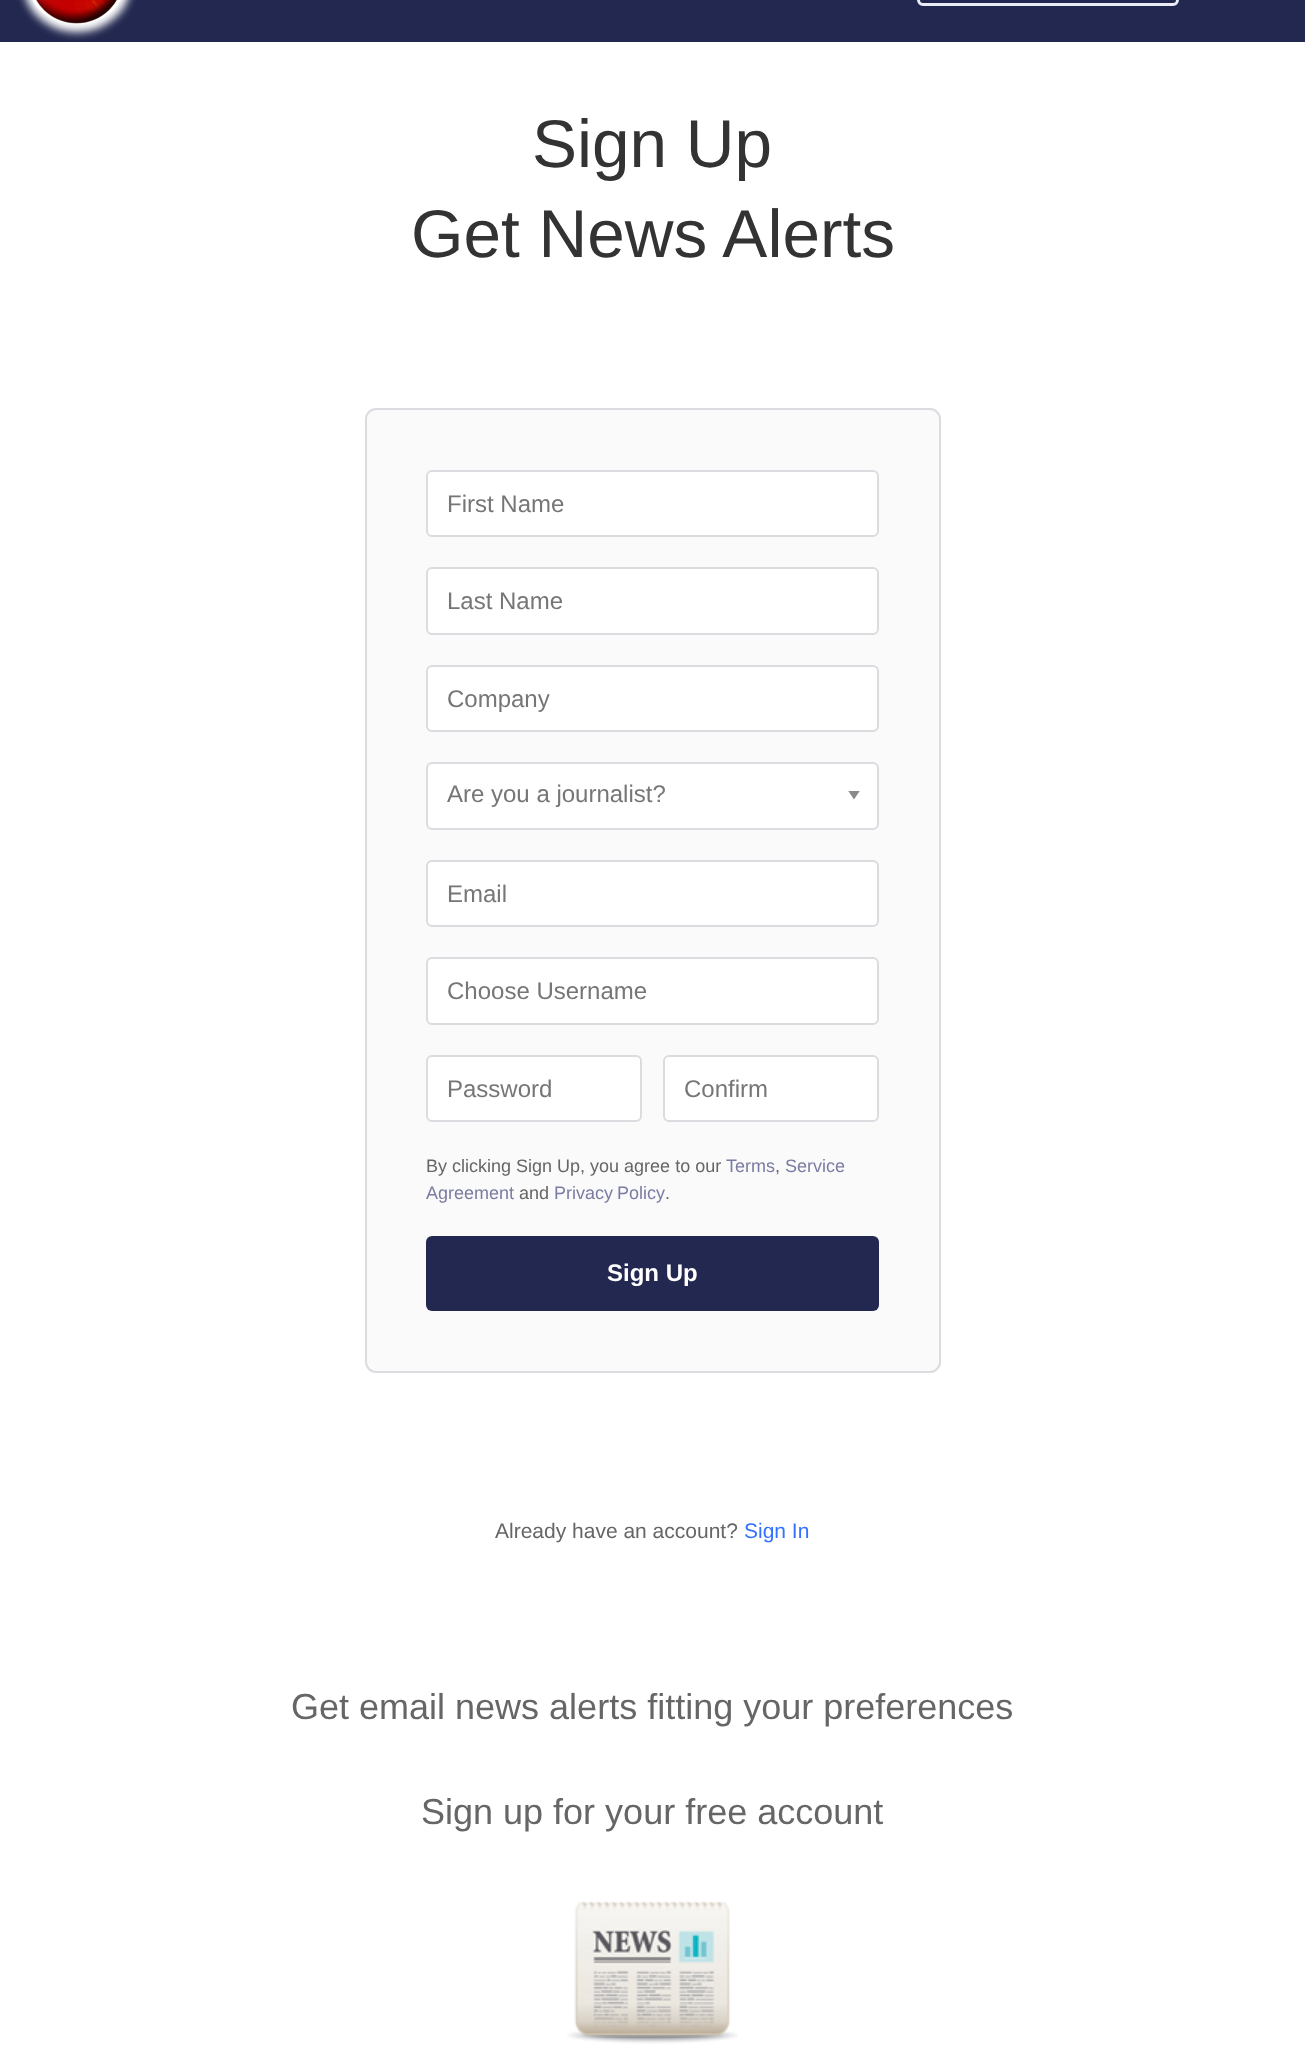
<svg xmlns="http://www.w3.org/2000/svg" width="1305" height="2053" viewBox="0 0 1305 2053">
  <style>
    .t1 { font: 67.5px Liberation Sans; fill: #333; }
    .t2 { font: 24px Liberation Sans; fill: #767676; }
    .t3 { font: 18px Liberation Sans; fill: #666; }
    .t4 { font: 18px Liberation Sans; fill: #7a7ca2; }
    .t5 { font: bold 24px Liberation Sans; fill: #fff; }
    .t6 { font: 21px Liberation Sans; fill: #666; }
    .t7 { font: 21px Liberation Sans; fill: #3372ff; }
    .t8 { font: 36px Liberation Sans; fill: #666; }
  </style>
  <defs>
    <clipPath id="clip1"><rect x="848" y="791" width="13" height="9"/></clipPath>
  </defs>
  <rect width="100%" height="100%" fill="#fff"/>
  <rect x="0" y="0" width="1305" height="42" fill="#232850"/>
  <rect x="23" y="-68" width="108" height="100" rx="54" fill="#fff" filter="blur(4.5px)"/>
  <rect x="30" y="-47" width="93" height="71" rx="46.5" fill="#fff"/>
  <image x="36" y="0" width="81" height="24" href="images/1.png"/>
  <rect x="918.5" y="-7.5" width="259" height="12" rx="4.5" fill="none" stroke="#eaedf4" stroke-width="3"/>
  <text x="532" y="167" class="t1">Sign Up</text>
  <text x="411" y="257" class="t1">Get News Alerts</text>
  <rect x="366" y="409" width="574" height="963" rx="10" fill="#fafafa" stroke="#dadce0" stroke-width="2"/>
  <rect x="427" y="471" width="451" height="65" rx="5" fill="#fff" stroke="#dadce0" stroke-width="2"/>
  <text x="447" y="512" class="t2">First Name</text>
  <rect x="427" y="568" width="451" height="66" rx="5" fill="#fff" stroke="#dadce0" stroke-width="2"/>
  <text x="447" y="609" class="t2">Last Name</text>
  <rect x="427" y="666" width="451" height="65" rx="5" fill="#fff" stroke="#dadce0" stroke-width="2"/>
  <text x="447" y="707" class="t2">Company</text>
  <rect x="426" y="762" width="453" height="68" rx="6" fill="#fff"/>
  <g clip-path="url(#clip1)">
    <path d="M848 790.5H860L854 799.5Z" fill="#8a8a8a"/>
  </g>
  <rect x="427" y="763" width="451" height="66" rx="5" fill="none" stroke="#dadce0" stroke-width="2"/>
  <text x="447" y="802" class="t2">Are you a journalist?</text>
  <rect x="427" y="861" width="451" height="65" rx="5" fill="#fff" stroke="#dadce0" stroke-width="2"/>
  <text x="447" y="902" class="t2">Email</text>
  <rect x="427" y="958" width="451" height="66" rx="5" fill="#fff" stroke="#dadce0" stroke-width="2"/>
  <text x="447" y="999" class="t2">Choose Username</text>
  <rect x="427" y="1056" width="214" height="65" rx="5" fill="#fff" stroke="#dadce0" stroke-width="2"/>
  <text x="447" y="1097" class="t2">Password</text>
  <rect x="664" y="1056" width="214" height="65" rx="5" fill="#fff" stroke="#dadce0" stroke-width="2"/>
  <text x="684" y="1097" class="t2">Confirm</text>
  <text x="426" y="1172" class="t3">By clicking Sign Up, you agree to our</text>
  <text x="726" y="1172" class="t4">Terms</text>
  <text x="775" y="1172" class="t3">,</text>
  <text x="785" y="1172" class="t4">Service</text>
  <text x="426" y="1199" class="t4">Agreement</text>
  <text x="519" y="1199" class="t3">and</text>
  <text x="554" y="1199" word-spacing="-1" class="t4">Privacy Policy</text>
  <text x="665" y="1199" class="t3">.</text>
  <rect x="426" y="1236" width="453" height="75" rx="6" fill="#232850"/>
  <text x="607" y="1281" class="t5">Sign Up</text>
  <text x="495" y="1538" class="t6">Already have an account?</text>
  <text x="744" y="1538" class="t7">Sign In</text>
  <text x="291" y="1719" class="t8">Get email news alerts fitting your preferences</text>
  <text x="421" y="1824" class="t8">Sign up for your free account</text>
  <image x="567" y="1901" width="171" height="143" href="images/2.png"/>
</svg>
